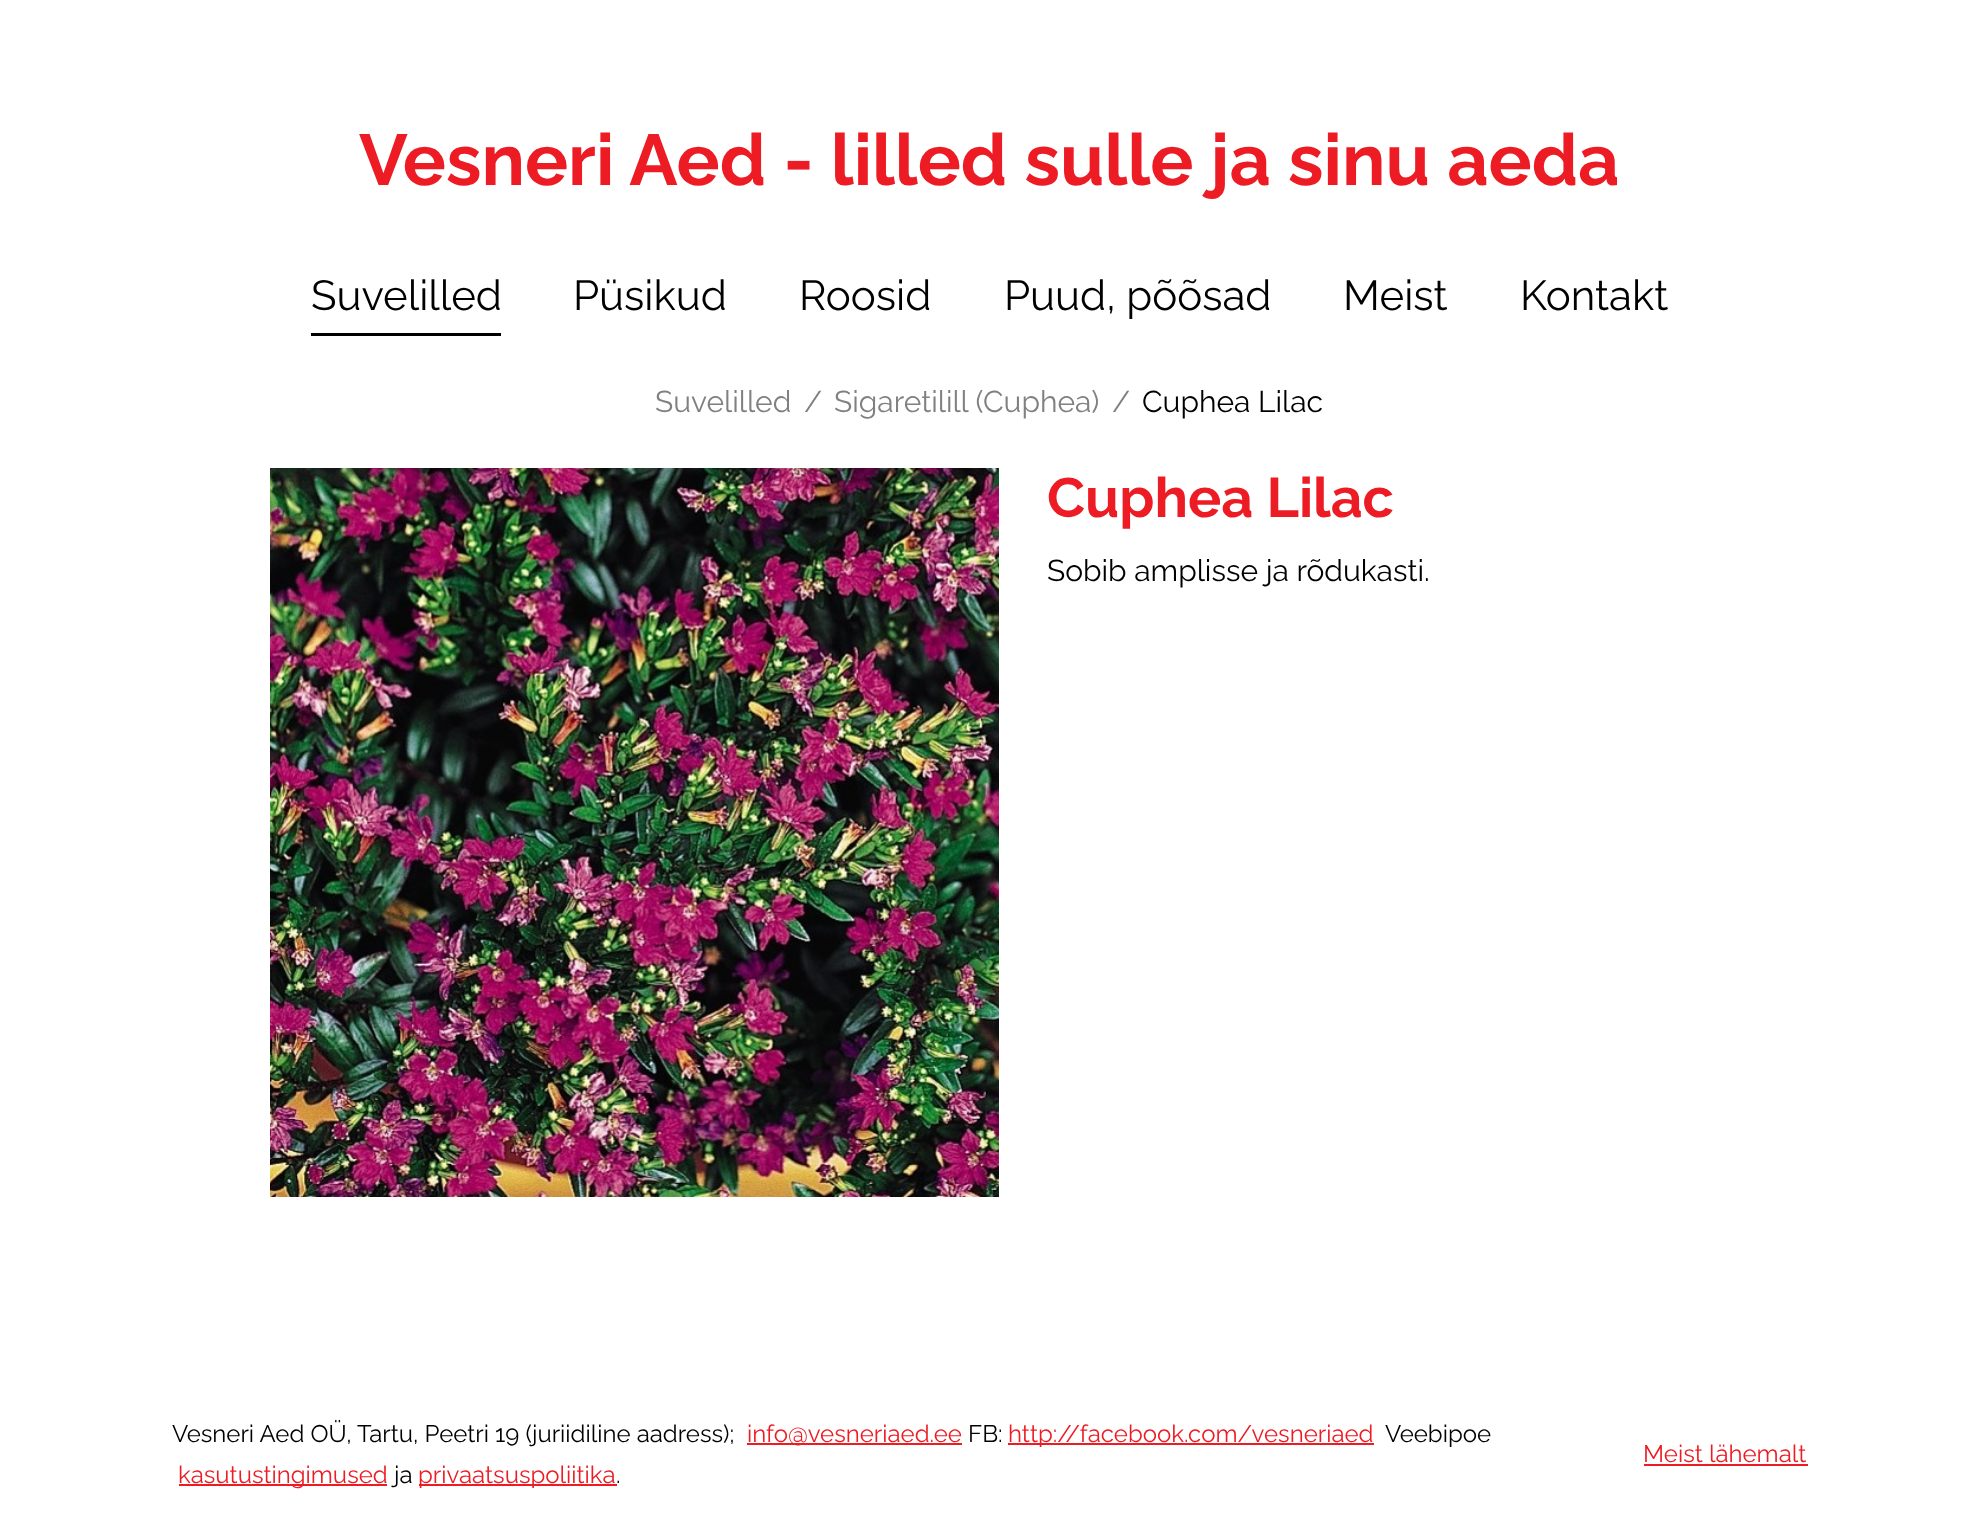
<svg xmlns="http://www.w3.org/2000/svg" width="1978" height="1521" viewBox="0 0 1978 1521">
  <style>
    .t1 { font: bold 72px Raleway; fill: #ed1c24; }
    .t2 { font: 42px Raleway; fill: #000; }
    .t3 { font: 30px Raleway; fill: #808080; }
    .t4 { font: 30px Raleway; fill: #000; }
    .t5 { font: bold 55.5px Raleway; fill: #ed1c24; }
    .t6 { font: 24px Raleway; fill: #000; }
    .t7 { font: 24px Raleway; fill: #ed1c24; }
  </style>
  <rect width="100%" height="100%" fill="#fff"/>
  <text x="359" y="185" class="t1">Vesneri Aed - lilled sulle ja sinu aeda</text>
  <rect x="311" y="333" width="190" height="3" fill="#000"/>
  <text x="311" y="310" class="t2">Suvelilled</text>
  <text x="573" y="310" class="t2">Püsikud</text>
  <text x="799" y="310" class="t2">Roosid</text>
  <text x="1004" y="310" class="t2">Puud, põõsad</text>
  <text x="1343" y="310" class="t2">Meist</text>
  <text x="1520" y="310" class="t2">Kontakt</text>
  <text x="655" y="412" class="t3">Suvelilled</text>
  <text x="804" y="412" class="t3">/</text>
  <text x="834" y="412" class="t3">Sigaretilill (Cuphea)</text>
  <text x="1112" y="412" class="t3">/</text>
  <text x="1142" y="412" class="t4">Cuphea Lilac</text>
  <image x="270" y="468" width="729" height="729" href="images/1.png"/>
  <text x="1047" y="517" class="t5">Cuphea Lilac</text>
  <text x="1047" y="581" class="t4">Sobib amplisse ja rõdukasti.</text>
  <text x="172" y="1442" class="t6">Vesneri Aed OÜ, Tartu, Peetri 19 (juriidiline aadress);</text>
  <rect x="747" y="1443" width="215" height="2" fill="#ed1c24"/>
  <text x="747" y="1442" class="t7">info@vesneriaed.ee</text>
  <text x="968" y="1442" class="t6">FB:</text>
  <rect x="1008" y="1443" width="366" height="2" fill="#ed1c24"/>
  <text x="1008" y="1442" class="t7">http://facebook.com/vesneriaed</text>
  <text x="1385" y="1442" class="t6">Veebipoe</text>
  <rect x="179" y="1484" width="208" height="2" fill="#ed1c24"/>
  <text x="178" y="1483" class="t7">kasutustingimused</text>
  <text x="394" y="1483" class="t6">ja</text>
  <rect x="419" y="1484" width="198" height="2" fill="#ed1c24"/>
  <text x="418" y="1483" class="t7">privaatsuspoliitika</text>
  <text x="616" y="1483" class="t6">.</text>
  <text x="1643" y="1462" class="t7">Meist lähemalt</text>
  <rect x="1644" y="1464" width="164" height="2" fill="#ed1c24"/>
</svg>
